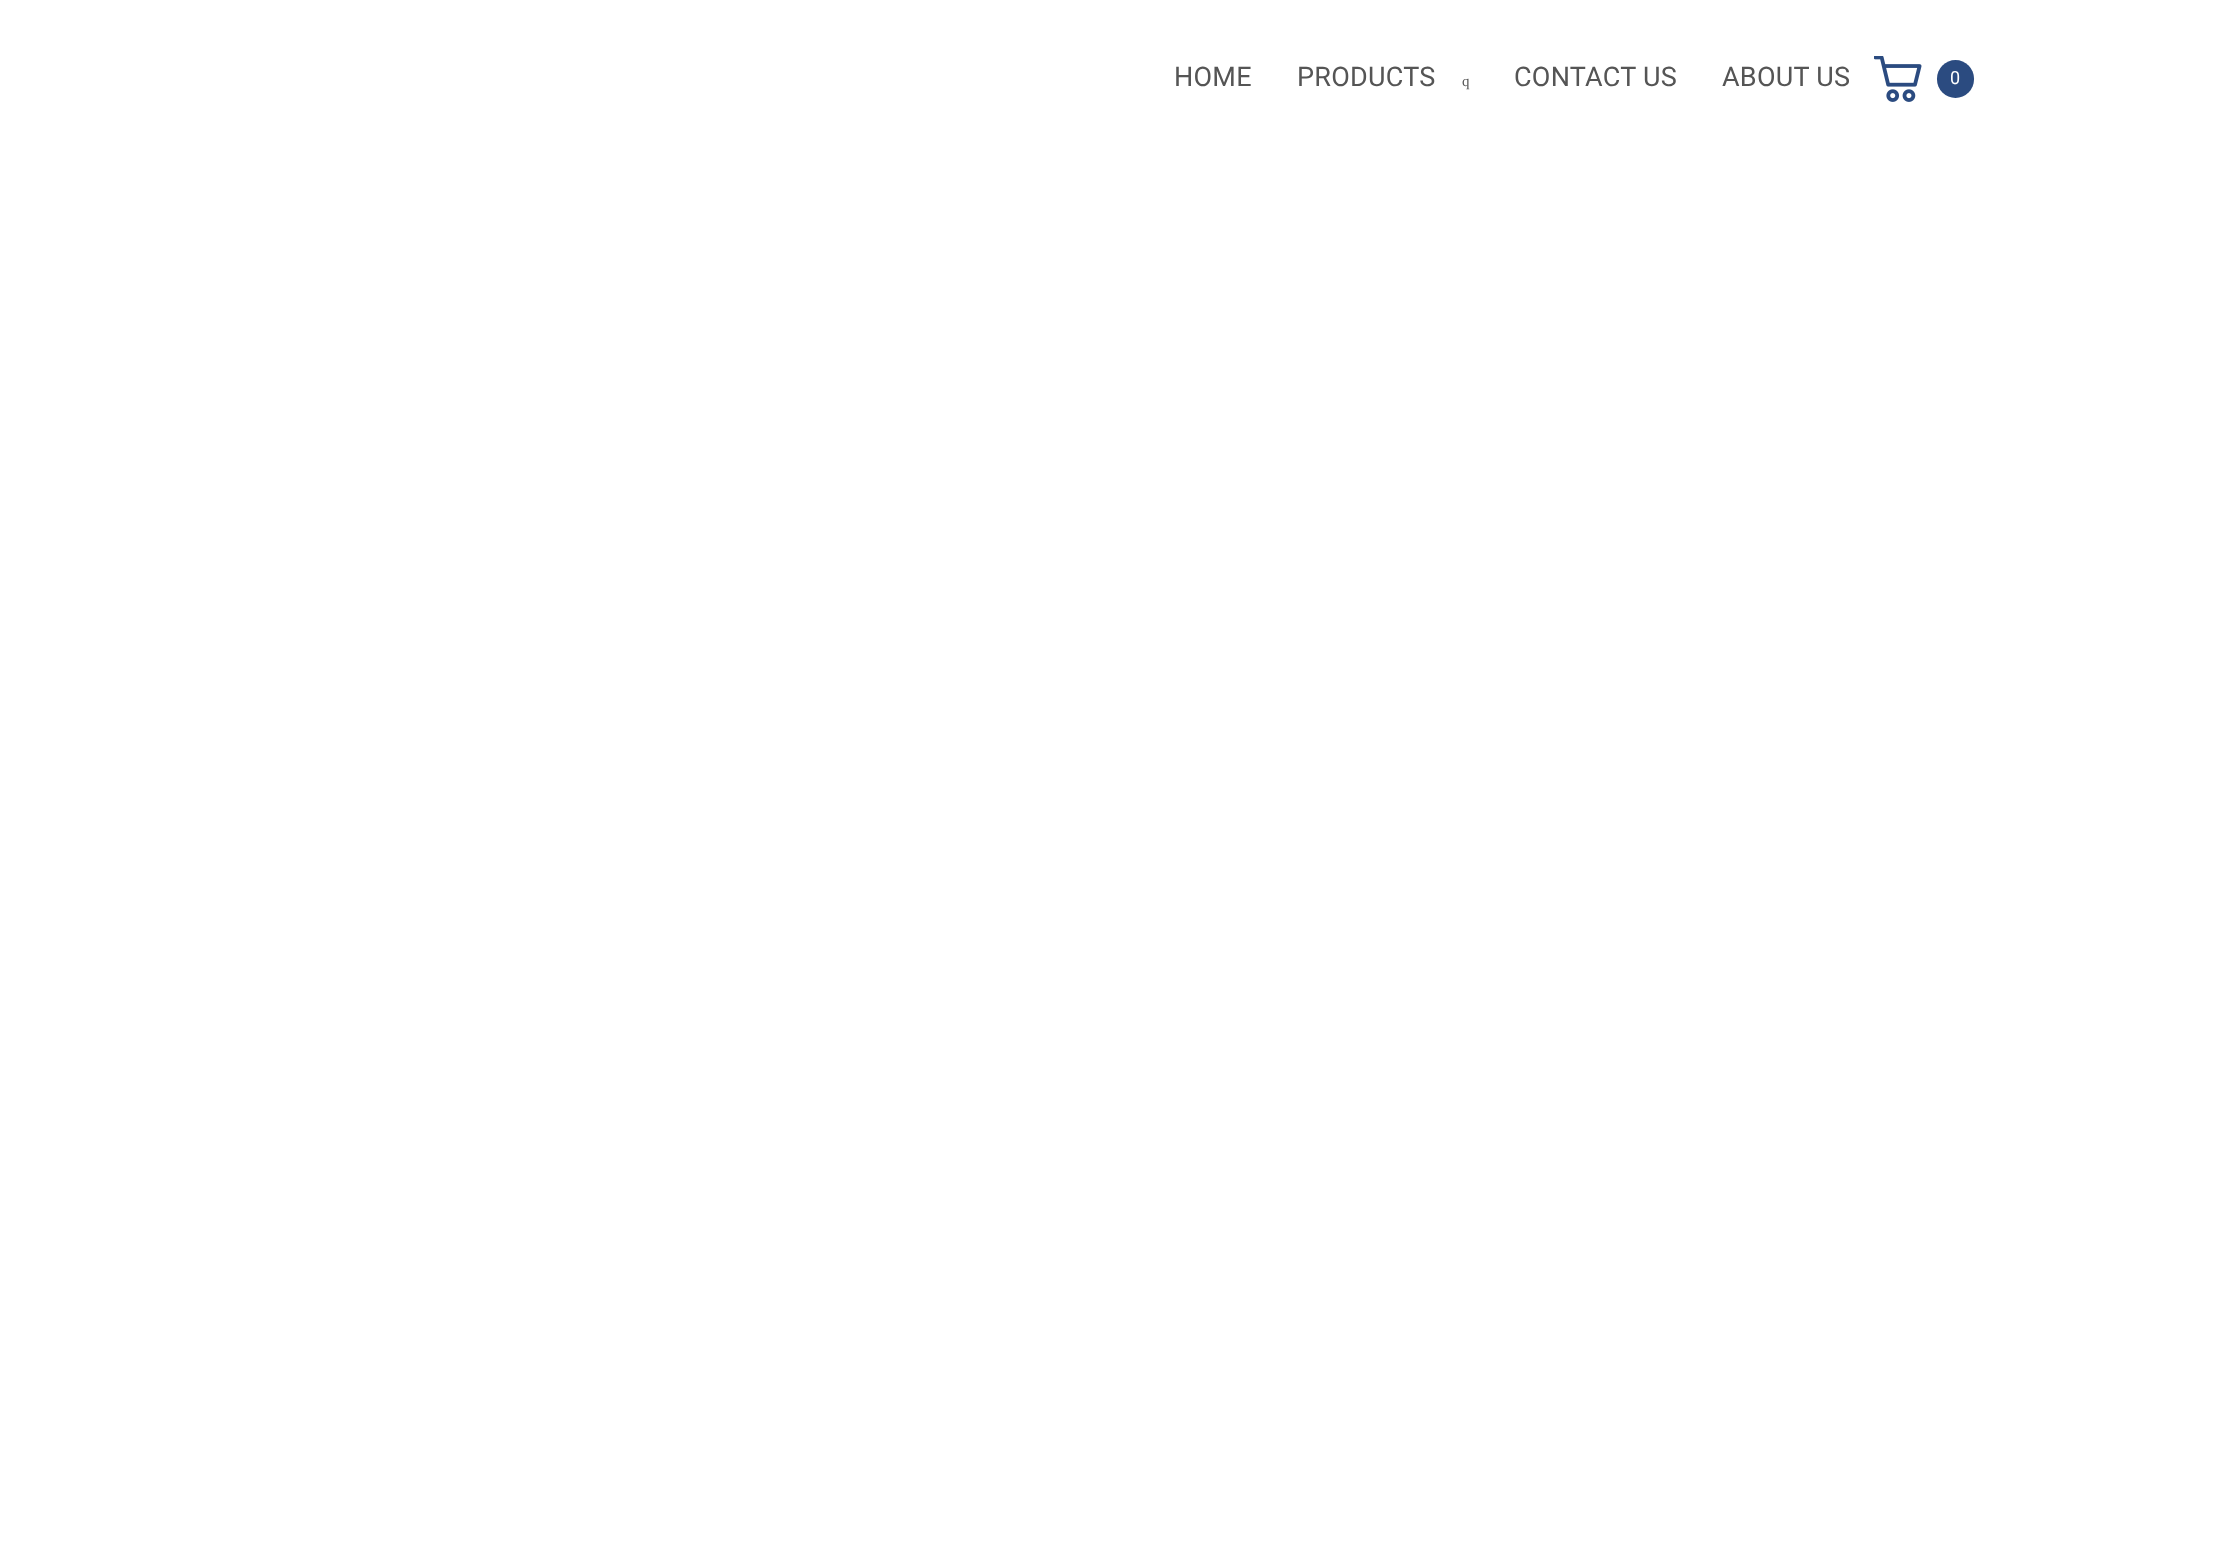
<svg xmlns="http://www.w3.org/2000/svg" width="2238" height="1562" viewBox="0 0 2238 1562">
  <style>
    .t1 { font: 27px Roboto; letter-spacing: 0.25px; fill: #555; }
    .t2 { font: 15px Liberation Serif; letter-spacing: 0.25px; fill: #555; }
    .t3 { font: 18px Roboto; letter-spacing: 0.25px; fill: #fff; }
  </style>
  <rect width="100%" height="100%" fill="#fff"/>
  <text x="1174" y="86" class="t1">HOME</text>
  <text x="1297" y="86" class="t1">PRODUCTS</text>
  <text x="1462" y="86" class="t2">q</text>
  <text x="1514" y="86" class="t1">CONTACT US</text>
  <text x="1722" y="86" class="t1">ABOUT US</text>
  <image x="1874" y="56" width="48" height="46" href="images/1.png"/>
  <rect x="1937" y="60" width="37" height="38" rx="18.5" fill="#2b4b80"/>
  <text x="1950" y="84" class="t3">0</text>
</svg>
